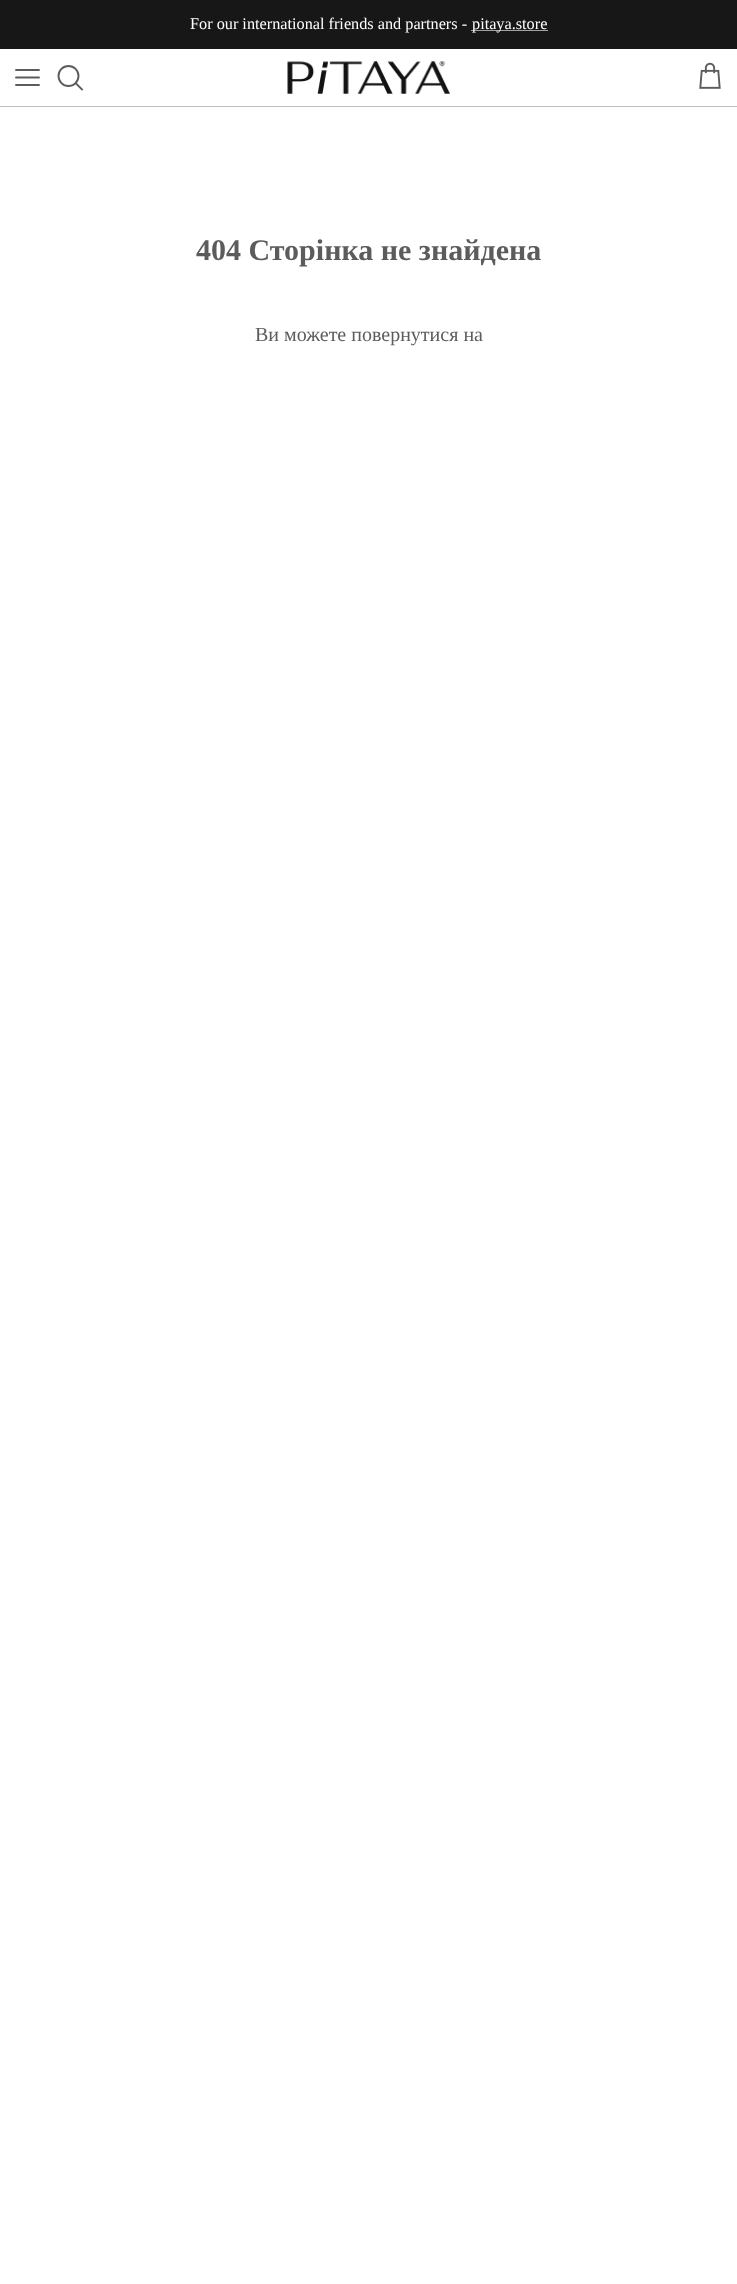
<svg xmlns="http://www.w3.org/2000/svg" width="737" height="2284" viewBox="0 0 737 2284">
  <style>
    .t1 { font: 16.25px Liberation Serif; fill: #fff; }
    .t2 { font: bold 30px Liberation Serif; fill: #5c5c5c; }
    .t3 { font: 20px Liberation Serif; fill: #5c5c5c; }
  </style>
  <rect width="100%" height="100%" fill="#fff"/>
  <rect x="0" y="0" width="737" height="49" fill="#171717"/>
  <text x="190" y="29" class="t1">For our international friends and partners -</text>
  <rect x="471" y="30" width="77" height="1" fill="#a2a2a2"/>
  <text x="472" y="29" class="t1">pitaya.store</text>
  <rect x="0" y="106" width="737" height="1" fill="#c1bebe"/>
  <path d="M16 77.5H39M16 70H39M16 85H39" fill="none" stroke="#5c5c5c" stroke-width="1.9" stroke-linecap="round" stroke-linejoin="round"/>
  <circle cx="68.5" cy="76" r="10" fill="none" stroke="#5c5c5c" stroke-width="1.9"/>
  <path d="M76 83.5L82 89.5" fill="none" stroke="#5c5c5c" stroke-width="1.9" stroke-linecap="square"/>
  <image x="287" y="61" width="163" height="33" href="images/1.png"/>
  <image x="699" y="62" width="22" height="27" href="images/2.png"/>
  <text x="196" y="260" class="t2">404 Сторінка не знайдена</text>
  <text x="255" y="341" class="t3">Ви можете повернутися на</text>
</svg>
